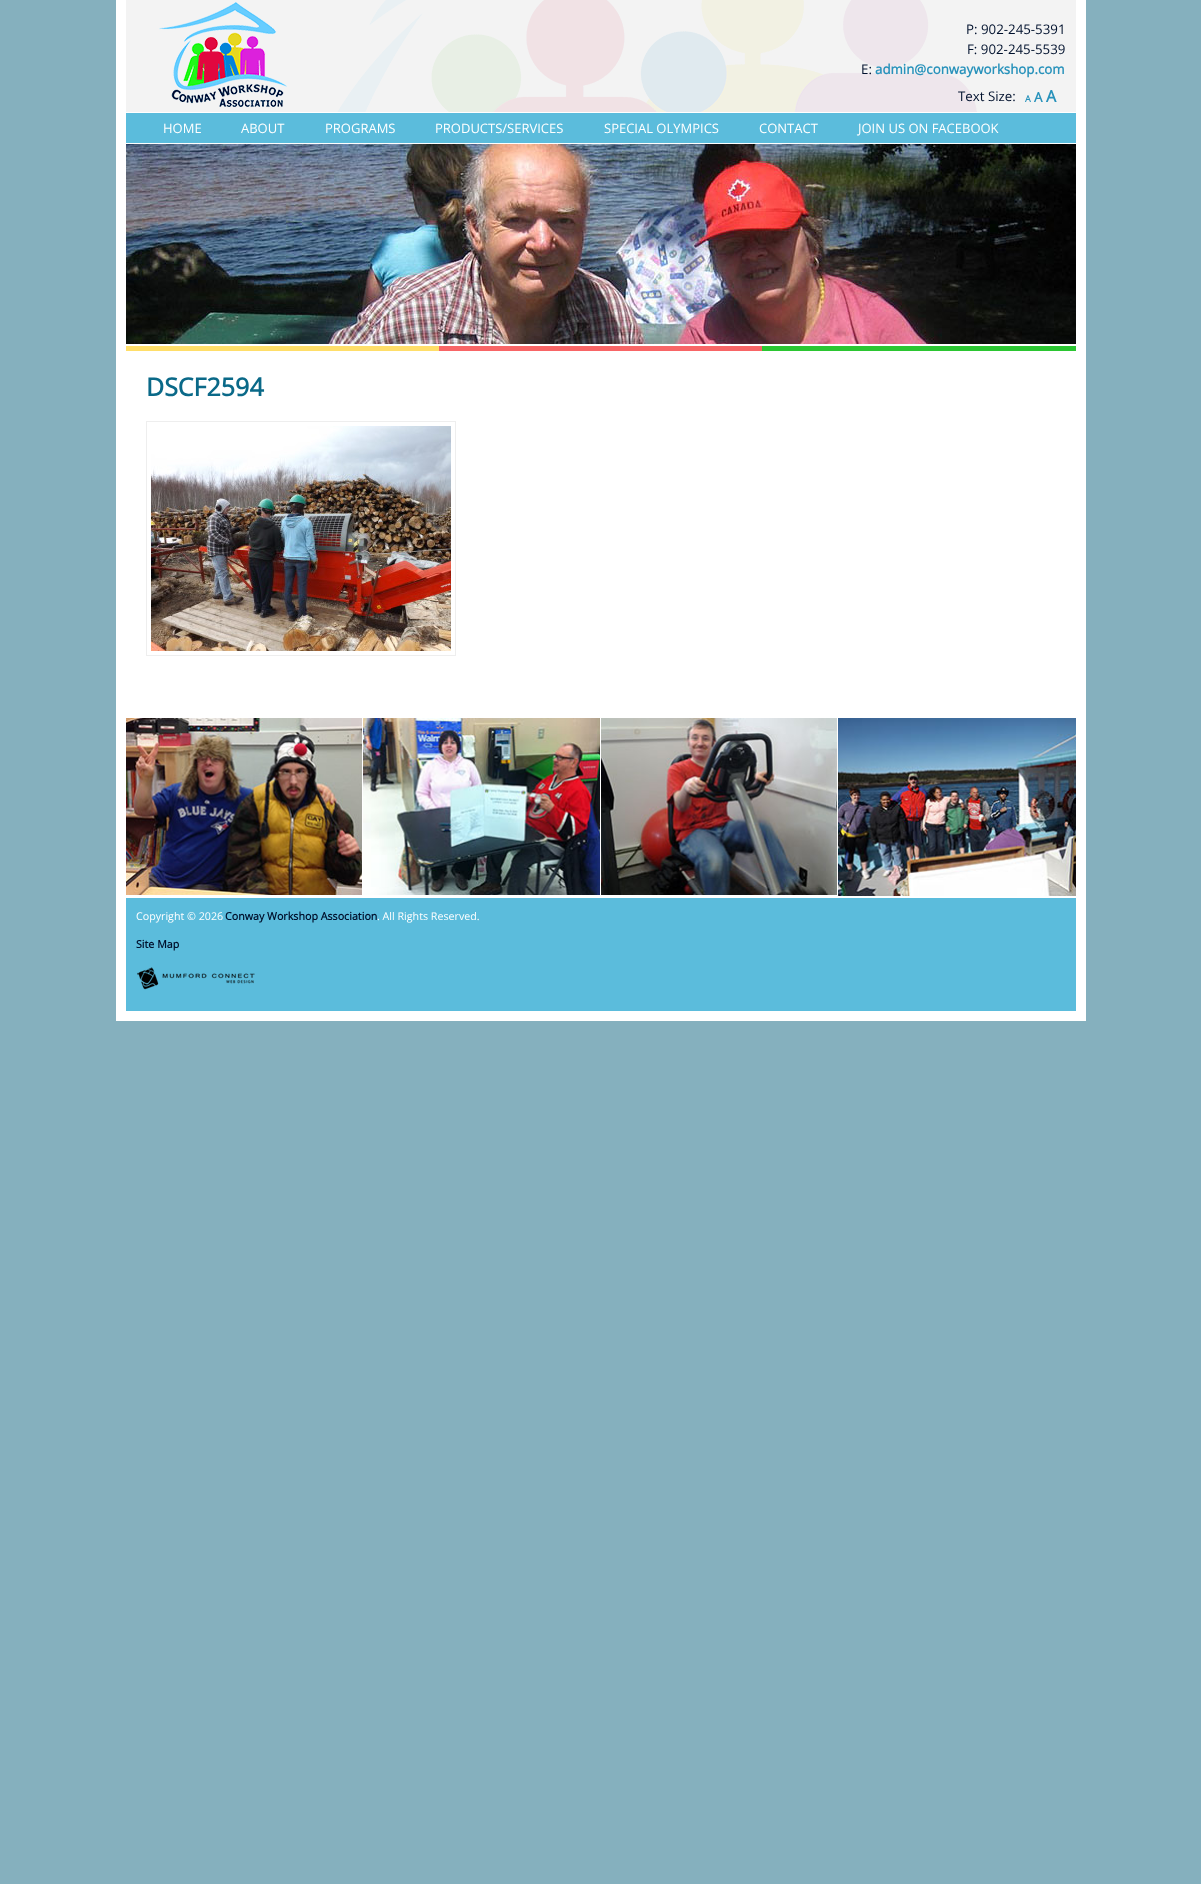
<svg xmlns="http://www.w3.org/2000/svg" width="1201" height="1884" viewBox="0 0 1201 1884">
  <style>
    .t1 { font: 13.3px Open Sans; fill: #00112d; }
    .t2 { font: bold 13.3px Open Sans; fill: #2892bb; }
    .t3 { font: bold 9px Open Sans; fill: #2892bb; }
    .t4 { font: bold 16px Open Sans; fill: #2892bb; }
    .t5 { font: 13px Open Sans; fill: #fff; }
    .t6 { font: bold 25px Open Sans; fill: #0a6988; }
    .t7 { font: 10.7px Open Sans; fill: #fff; }
    .t8 { font: bold 10.7px Open Sans; fill: #00112d; }
  </style>
  <rect width="100%" height="100%" fill="#85b0be"/>
  <rect x="116" y="0" width="970" height="1021" fill="#fff"/>
  <image x="126" y="0" width="950" height="112" href="images/1.png"/>
  <text x="966" y="34" class="t1">P: 902-245-5391</text>
  <text x="967" y="54" class="t1">F: 902-245-5539</text>
  <text x="861" y="74" class="t1">E:</text>
  <text x="875" y="74" class="t2">admin@conwayworkshop.com</text>
  <text x="958" y="101" class="t1">Text Size:</text>
  <text x="1025" y="102" class="t3">A</text>
  <text x="1034" y="102" class="t2">A</text>
  <text x="1046" y="102" class="t4">A</text>
  <rect x="126" y="113" width="950" height="30" fill="#5bbcdc"/>
  <text x="163" y="133" class="t5">HOME</text>
  <text x="241" y="133" class="t5">ABOUT</text>
  <text x="325" y="133" class="t5">PROGRAMS</text>
  <text x="435" y="133" class="t5">PRODUCTS/SERVICES</text>
  <text x="604" y="133" class="t5">SPECIAL OLYMPICS</text>
  <text x="759" y="133" class="t5">CONTACT</text>
  <text x="858" y="133" class="t5">JOIN US ON FACEBOOK</text>
  <image x="126" y="144" width="950" height="200" href="images/2.png"/>
  <rect x="126" y="346" width="313" height="5" fill="#ffde69"/>
  <rect x="439" y="346" width="323" height="5" fill="#f86566"/>
  <rect x="762" y="346" width="314" height="5" fill="#2bc632"/>
  <text x="146" y="396" class="t6">DSCF2594</text>
  <rect x="146.5" y="421.5" width="309" height="234" fill="none" stroke="#eee"/>
  <image x="151" y="426" width="300" height="225" href="images/3.png"/>
  <image x="126" y="718" width="236" height="177" href="images/4.png"/>
  <image x="363" y="718" width="237" height="177" href="images/5.png"/>
  <image x="601" y="718" width="236" height="177" href="images/6.png"/>
  <image x="838" y="718" width="238" height="178" href="images/7.png"/>
  <rect x="126" y="898" width="950" height="113" fill="#5bbcdc"/>
  <text x="136" y="920" class="t7">Copyright © 2026</text>
  <text x="225" y="920" class="t8">Conway Workshop Association</text>
  <text x="377" y="920" class="t7">. All Rights Reserved.</text>
  <text x="136" y="948" class="t8">Site Map</text>
  <image x="137" y="967" width="118" height="23" href="images/8.png"/>
</svg>
